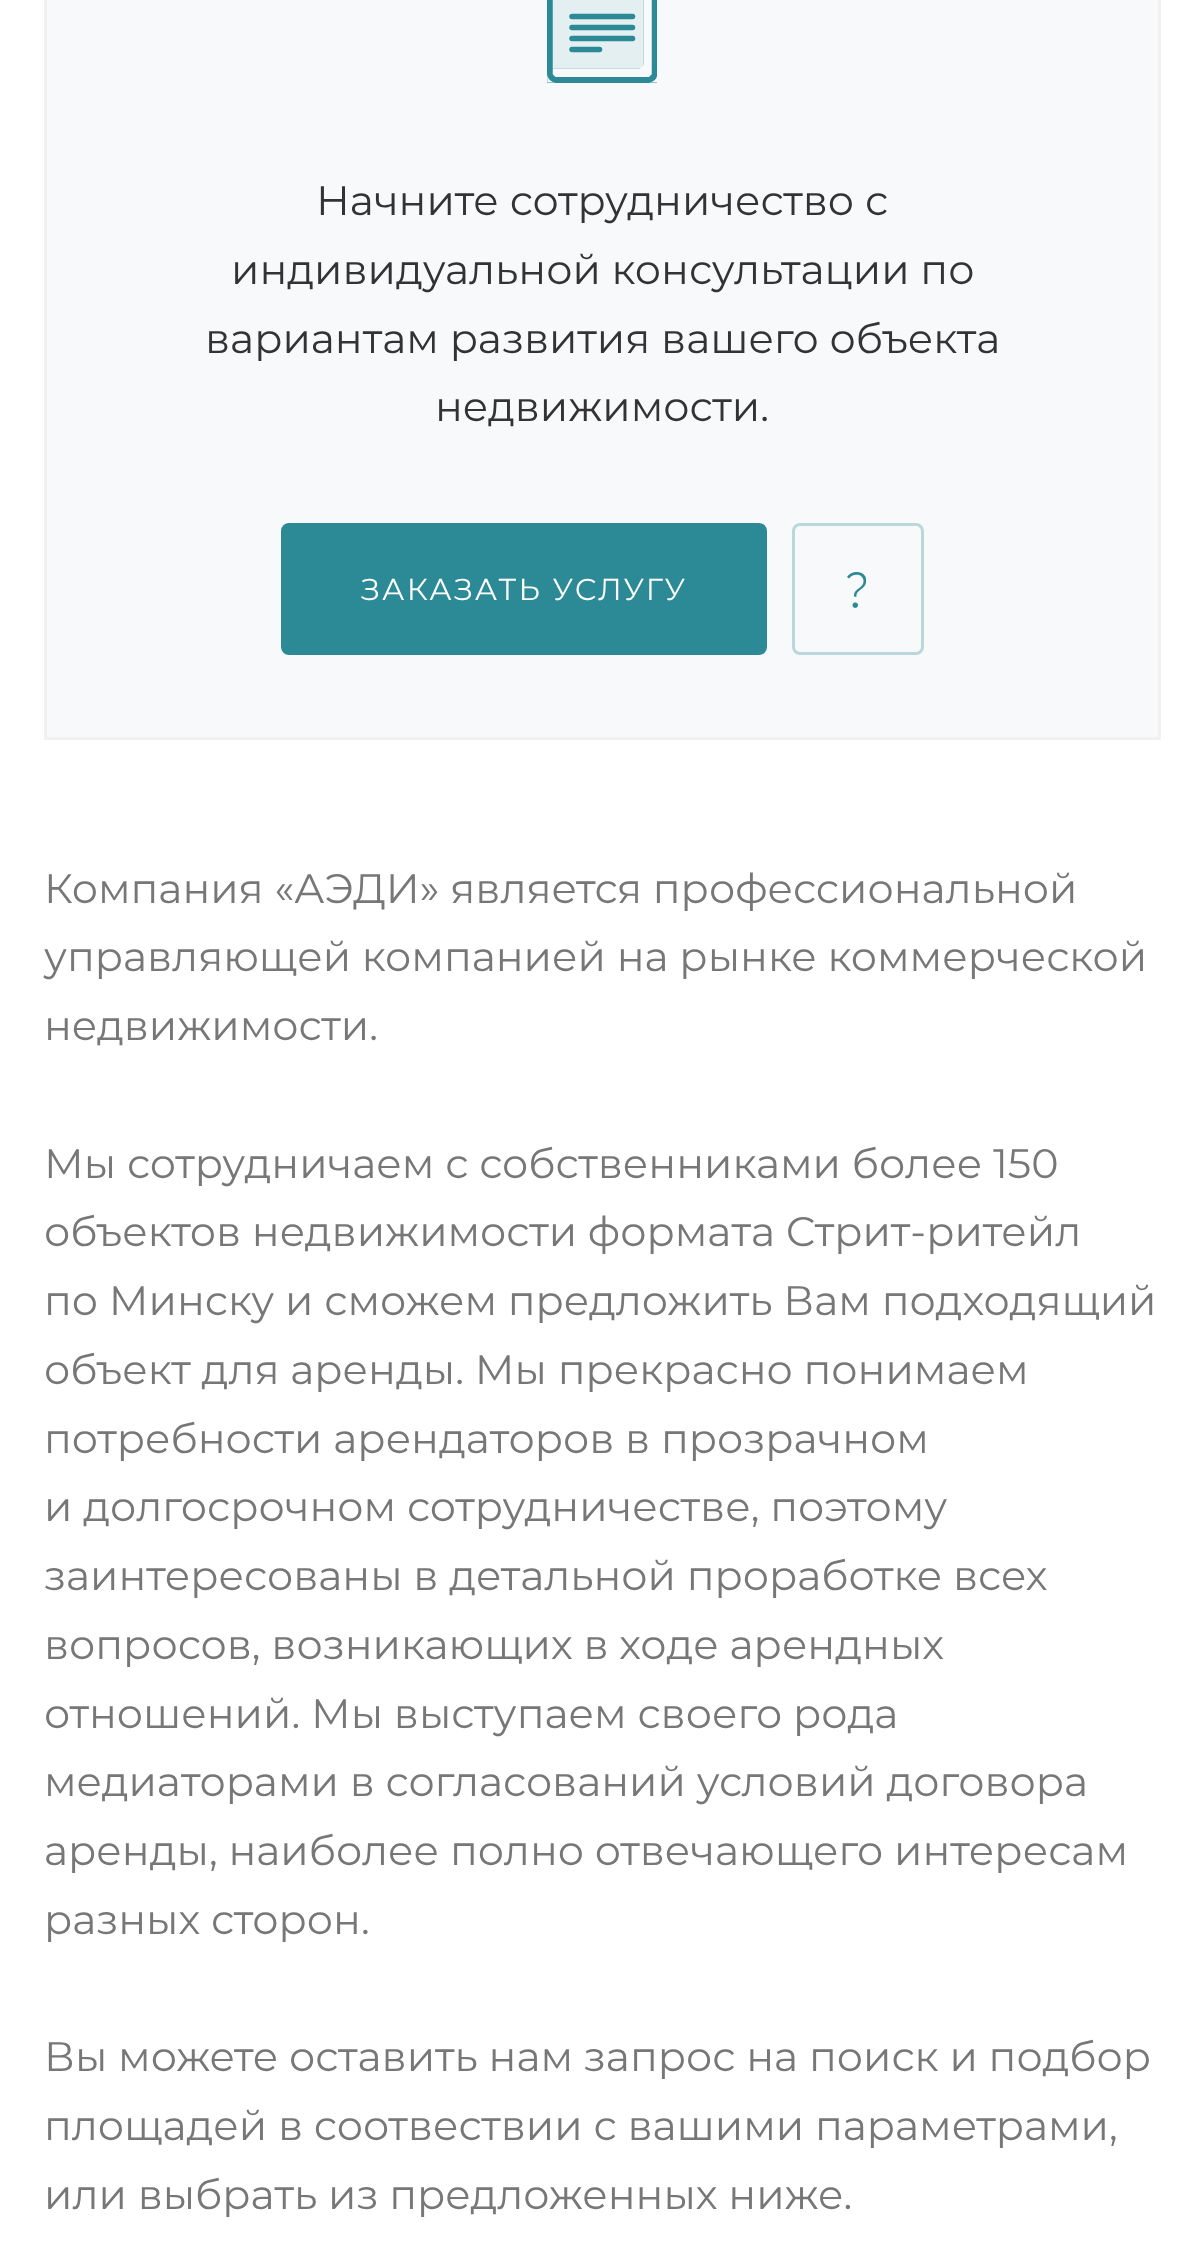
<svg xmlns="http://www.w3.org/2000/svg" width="1202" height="2251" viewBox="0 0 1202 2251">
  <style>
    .t1 { font: 41.25px Montserrat; fill: #333; }
    .t2 { font: 30.25px Montserrat; letter-spacing: 2.25px; fill: #fff; }
    .t3 { font: 41.25px Montserrat; fill: #777; }
  </style>
  <rect width="100%" height="100%" fill="#fff"/>
  <rect x="47" y="0" width="1111" height="737" fill="#f8f9fb"/>
  <rect x="1158" y="0" width="3" height="740" fill="#f1f1f1"/>
  <rect x="44" y="737" width="1117" height="3" fill="#f1f1f1"/>
  <rect x="44" y="0" width="3" height="740" fill="#f1f1f1"/>
  <rect x="547" y="0" width="110" height="83" fill="#2b8a95"/>
  <image x="547" y="0" width="110" height="83" href="images/1.png"/>
  <text x="316" y="215" class="t1">Начните сотрудничество с</text>
  <text x="231" y="284" class="t1">индивидуальной консультации по</text>
  <text x="205" y="353" class="t1">вариантам развития вашего объекта</text>
  <text x="435" y="421" class="t1">недвижимости.</text>
  <rect x="282.5" y="524.5" width="483" height="129" rx="6.5" fill="#2b8a95" stroke="#2b8a95" stroke-width="3"/>
  <text x="361" y="600" class="t2">ЗАКАЗАТЬ УСЛУГУ</text>
  <rect x="793.5" y="524.5" width="129" height="129" rx="6.5" fill="none" stroke="#bad8dc" stroke-width="3"/>
  <image x="847" y="572" width="19" height="36" href="images/2.png"/>
  <text x="44" y="903" class="t3">Компания «АЭДИ» является профессиональной</text>
  <text x="44" y="971" class="t3">управляющей компанией на рынке коммерческой</text>
  <text x="44" y="1040" class="t3">недвижимости.</text>
  <text x="44" y="1178" class="t3">Мы сотрудничаем с собственниками более 150</text>
  <text x="44" y="1246" class="t3">объектов недвижимости формата Стрит-ритейл</text>
  <text x="44" y="1315" class="t3">по Минску и сможем предложить Вам подходящий</text>
  <text x="44" y="1384" class="t3">объект для аренды. Мы прекрасно понимаем</text>
  <text x="44" y="1453" class="t3">потребности арендаторов в прозрачном</text>
  <text x="44" y="1521" class="t3">и долгосрочном сотрудничестве, поэтому</text>
  <text x="44" y="1590" class="t3">заинтересованы в детальной проработке всех</text>
  <text x="44" y="1659" class="t3">вопросов, возникающих в ходе арендных</text>
  <text x="44" y="1728" class="t3">отношений. Мы выступаем своего рода</text>
  <text x="44" y="1796" class="t3">медиаторами в согласований условий договора</text>
  <text x="44" y="1865" class="t3">аренды, наиболее полно отвечающего интересам</text>
  <text x="44" y="1934" class="t3">разных сторон.</text>
  <text x="44" y="2071" class="t3">Вы можете оставить нам запрос на поиск и подбор</text>
  <text x="44" y="2140" class="t3">площадей в соотвествии с вашими параметрами,</text>
  <text x="44" y="2209" class="t3">или выбрать из предложенных ниже.</text>
</svg>
